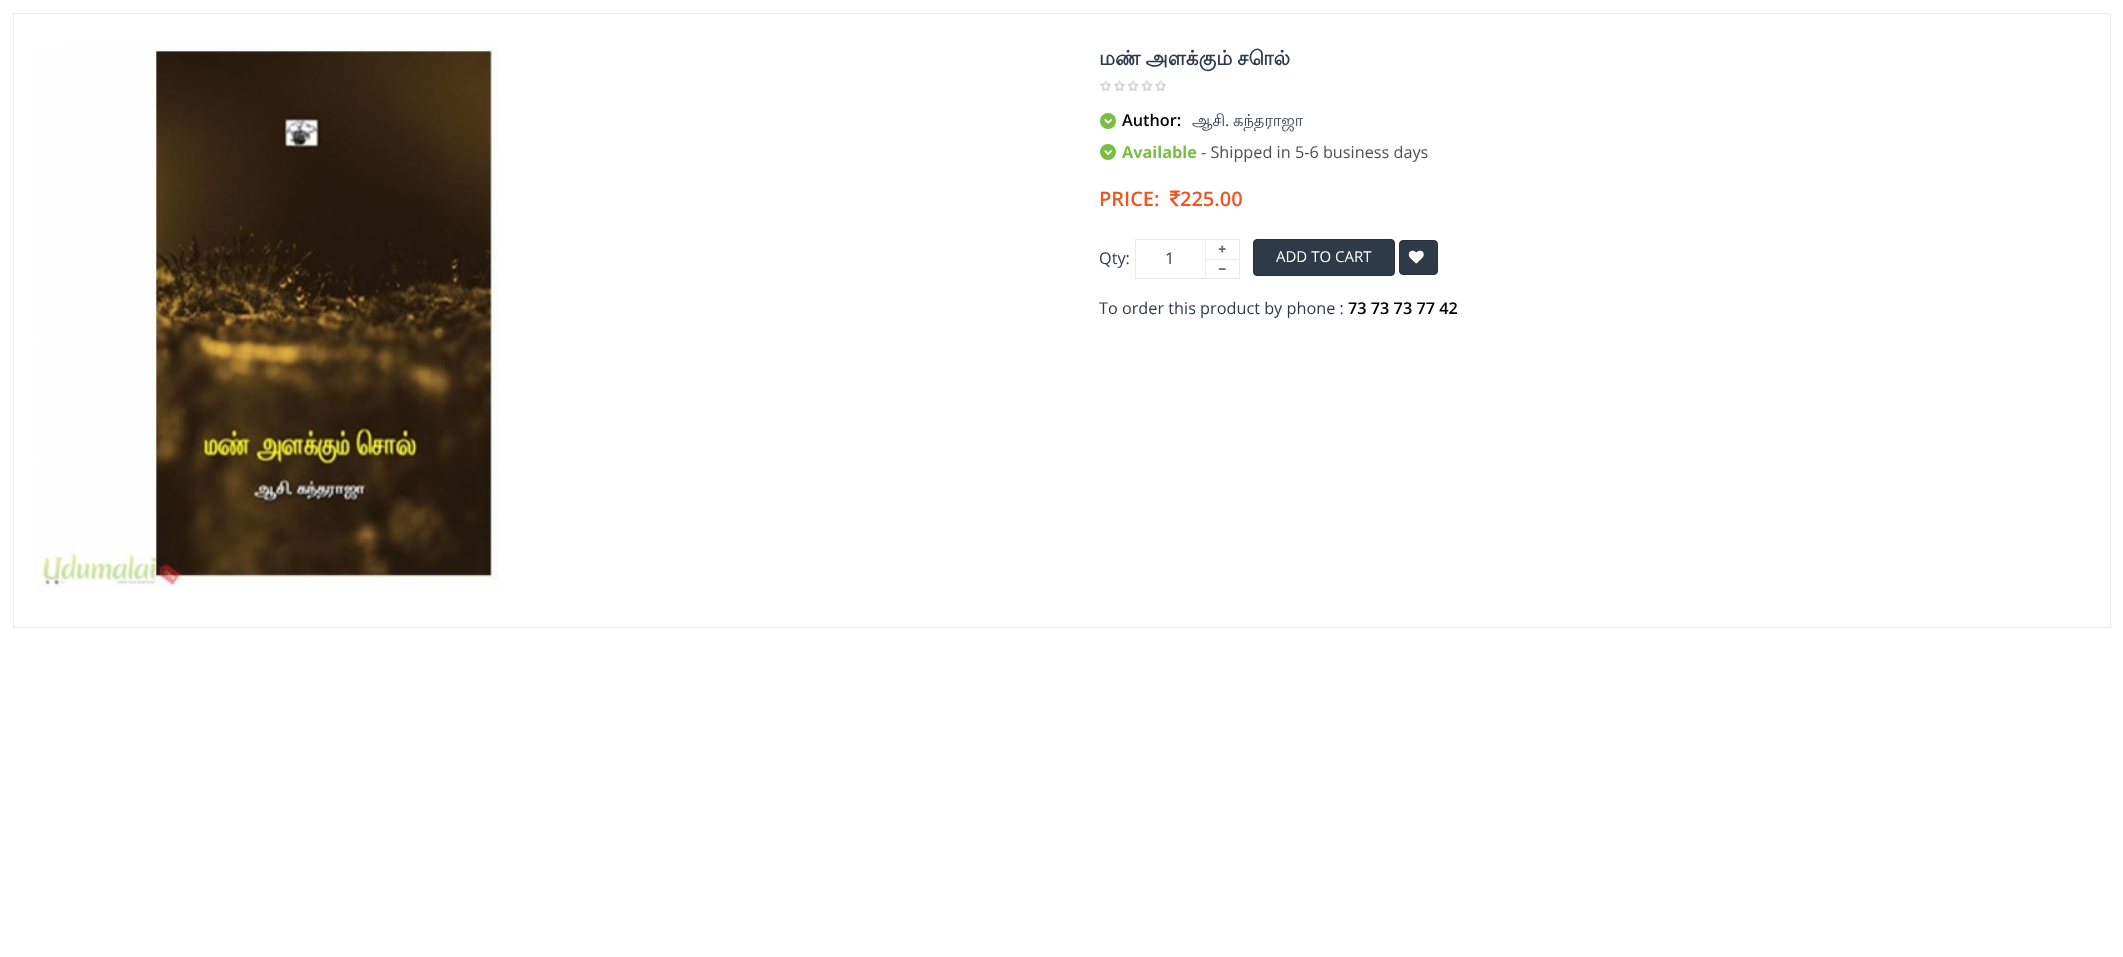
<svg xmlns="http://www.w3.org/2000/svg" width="2123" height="957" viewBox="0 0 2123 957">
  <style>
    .t1 { font: bold 20px Lohit Tamil; fill: #2e3a47; }
    .t2 { font: 600 16.25px Open Sans; fill: #000; }
    .t3 { font: 16.25px Lohit Tamil; fill: #2e3a47; }
    .t4 { font: 16.25px Open Sans; fill: #2e3a47; }
    .t5 { font: bold 16.25px Open Sans; fill: #7bbd42; }
    .t6 { font: 16.25px Open Sans; fill: #4f4f4f; }
    .t7 { font: 600 20px Open Sans; fill: #f05423; }
    .t8 { font: 15px Open Sans; fill: #fff; }
  </style>
  <rect width="100%" height="100%" fill="#fff"/>
  <rect x="13.5" y="13.5" width="2097" height="614" fill="none" stroke="#e9e9e9"/>
  <image x="34" y="46" width="465" height="543" href="images/1.png"/>
  <text x="1099" y="65" word-spacing="-1" class="t1">மண் அளக்கும் சொல்</text>
  <image x="1100" y="80" width="67" height="12" href="images/2.png"/>
  <circle cx="1108" cy="121" r="8" fill="#7bbd42"/>
  <image x="1104" y="118" width="8" height="6" href="images/3.png"/>
  <text x="1122" y="126" class="t2">Author:</text>
  <text x="1192" y="126" class="t3">ஆசி</text>
  <text x="1225" y="126" class="t4">.</text>
  <text x="1233" y="126" class="t3">கந்தராஜா</text>
  <circle cx="1108" cy="152" r="8" fill="#7bbd42"/>
  <image x="1104" y="150" width="8" height="6" href="images/4.png"/>
  <text x="1122" y="158" class="t5">Available</text>
  <text x="1201" y="158" class="t6">- Shipped in 5-6 business days</text>
  <text x="1099" y="206" class="t7">PRICE:</text>
  <image x="1170" y="190" width="10" height="17" href="images/5.png"/>
  <text x="1180" y="206" class="t7">225.00</text>
  <text x="1099" y="264" class="t4">Qty:</text>
  <rect x="1135.5" y="239.5" width="70" height="39" fill="none" stroke="#e9e9e9"/>
  <text x="1165" y="264" class="t4">1</text>
  <rect x="1206" y="239" width="34" height="1" fill="#e9e9e9"/>
  <rect x="1239" y="239" width="1" height="20" fill="#e9e9e9"/>
  <image x="1218" y="245" width="8" height="8" href="images/6.png"/>
  <rect x="1206" y="259" width="34" height="1" fill="#e9e9e9"/>
  <rect x="1239" y="259" width="1" height="20" fill="#e9e9e9"/>
  <rect x="1206" y="278" width="34" height="1" fill="#e9e9e9"/>
  <image x="1218" y="268" width="8" height="2" href="images/7.png"/>
  <rect x="1253.5" y="239.5" width="141" height="36" rx="3.5" fill="#2e3a47" stroke="#28313c"/>
  <text x="1276" y="262" class="t8">ADD TO CART</text>
  <rect x="1399.5" y="240.5" width="38" height="34" rx="3.5" fill="#2e3a47" stroke="#28313c"/>
  <image x="1408" y="250" width="16" height="14" href="images/8.png"/>
  <text x="1099" y="314" class="t4">To order this product by phone :</text>
  <text x="1348" y="314" class="t2">73 73 73 77 42</text>
</svg>
